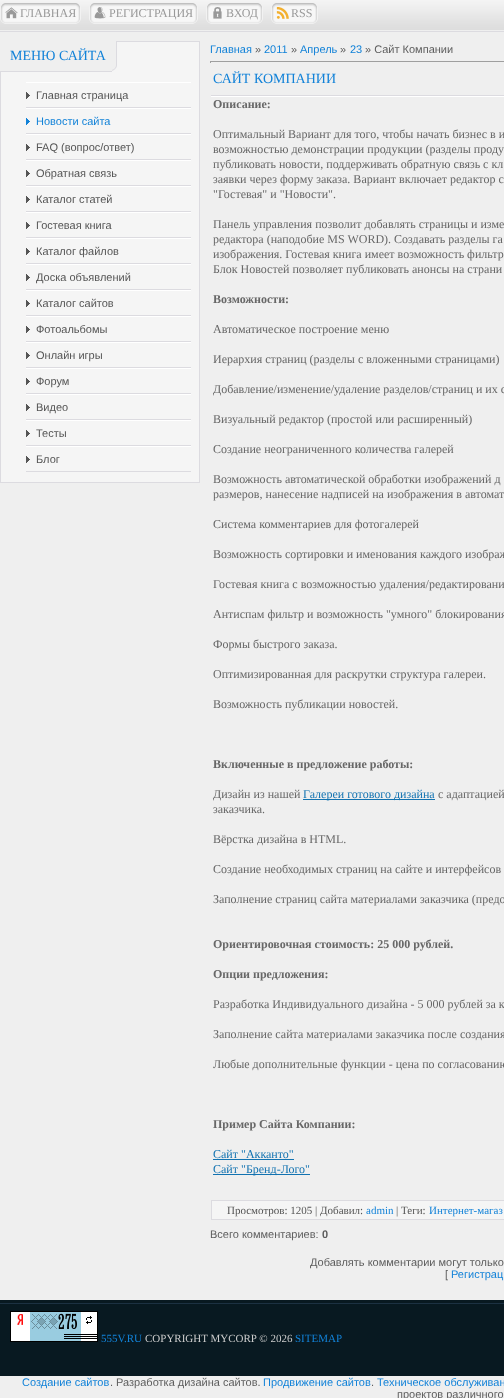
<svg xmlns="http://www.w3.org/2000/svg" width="504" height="1398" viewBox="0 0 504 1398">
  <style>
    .t1 { font: 12px Liberation Serif; fill: #999; }
    .t2 { font: 14px Liberation Serif; fill: #1282d8; }
    .t3 { font: 11px Liberation Sans; fill: #555; }
    .t4 { font: 11px Liberation Sans; fill: #1282d8; }
    .t5 { font: 11px Liberation Sans; fill: #5d5d5d; }
    .t6 { font: bold 12px Liberation Serif; fill: #676767; }
    .t7 { font: 12px Liberation Serif; fill: #676767; }
    .t8 { font: 12px Liberation Serif; fill: #1373b1; }
    .t9 { font: 11px Liberation Serif; fill: #555; }
    .t10 { font: 11px Liberation Serif; fill: #1282d8; }
    .t11 { font: bold 11px Liberation Sans; fill: #5d5d5d; }
    .t12 { font: 11px Liberation Serif; fill: #ccc; }
  </style>
  <rect width="100%" height="100%" fill="#efefef"/>
  <image x="0" y="0" width="504" height="32" href="images/1.png"/>
  <image x="0" y="3" width="5" height="21" href="images/2.png"/>
  <image x="5" y="3" width="71" height="21" href="images/3.png"/>
  <image x="5" y="7" width="13" height="12" href="images/4.png"/>
  <text x="20" y="17" class="t1">ГЛАВНАЯ</text>
  <image x="76" y="3" width="5" height="21" href="images/5.png"/>
  <image x="89" y="3" width="5" height="21" href="images/2.png"/>
  <image x="94" y="3" width="99" height="21" href="images/6.png"/>
  <image x="94" y="7" width="12" height="12" href="images/7.png"/>
  <text x="109" y="17" class="t1">РЕГИСТРАЦИЯ</text>
  <image x="193" y="3" width="5" height="21" href="images/5.png"/>
  <image x="206" y="3" width="5" height="21" href="images/2.png"/>
  <image x="211" y="3" width="47" height="21" href="images/8.png"/>
  <image x="213" y="7" width="9" height="12" href="images/9.png"/>
  <text x="226" y="17" class="t1">ВХОД</text>
  <image x="258" y="3" width="5" height="21" href="images/5.png"/>
  <image x="271" y="3" width="5" height="21" href="images/2.png"/>
  <image x="276" y="3" width="37" height="21" href="images/10.png"/>
  <image x="276" y="6" width="13" height="13" href="images/11.png"/>
  <text x="291" y="17" class="t1">RSS</text>
  <image x="313" y="3" width="5" height="21" href="images/5.png"/>
  <rect x="1" y="42" width="198" height="440" fill="#f5f5f5"/>
  <rect x="117" y="41" width="83" height="1" fill="#dcdbe0"/>
  <rect x="199" y="41" width="1" height="442" fill="#dcdbe0"/>
  <rect x="1" y="42" width="111" height="29" fill="#efefef"/>
  <rect x="0" y="71" width="112" height="1" fill="#dcdbe0"/>
  <text x="10" y="60" class="t2">МЕНЮ САЙТА</text>
  <image x="112" y="41" width="5" height="30" href="images/12.png"/>
  <rect x="0" y="482" width="200" height="1" fill="#dcdbe0"/>
  <rect x="0" y="72" width="1" height="411" fill="#dcdbe0"/>
  <rect x="26" y="82" width="165" height="1" fill="#fff"/>
  <rect x="26" y="107" width="165" height="1" fill="#dcdbe0"/>
  <image x="26" y="92" width="4" height="7" href="images/13.png"/>
  <text x="36" y="99" class="t3">Главная страница</text>
  <rect x="26" y="108" width="165" height="1" fill="#fff"/>
  <rect x="26" y="133" width="165" height="1" fill="#dcdbe0"/>
  <image x="26" y="118" width="4" height="7" href="images/14.png"/>
  <text x="36" y="125" class="t4">Новости сайта</text>
  <rect x="26" y="134" width="165" height="1" fill="#fff"/>
  <rect x="26" y="159" width="165" height="1" fill="#dcdbe0"/>
  <image x="26" y="144" width="4" height="7" href="images/13.png"/>
  <text x="36" y="151" class="t3">FAQ (вопрос/ответ)</text>
  <rect x="26" y="160" width="165" height="1" fill="#fff"/>
  <rect x="26" y="185" width="165" height="1" fill="#dcdbe0"/>
  <image x="26" y="170" width="4" height="7" href="images/13.png"/>
  <text x="36" y="177" class="t3">Обратная связь</text>
  <rect x="26" y="186" width="165" height="1" fill="#fff"/>
  <rect x="26" y="211" width="165" height="1" fill="#dcdbe0"/>
  <image x="26" y="196" width="4" height="7" href="images/13.png"/>
  <text x="36" y="203" class="t3">Каталог статей</text>
  <rect x="26" y="212" width="165" height="1" fill="#fff"/>
  <rect x="26" y="237" width="165" height="1" fill="#dcdbe0"/>
  <image x="26" y="222" width="4" height="7" href="images/13.png"/>
  <text x="36" y="229" class="t3">Гостевая книга</text>
  <rect x="26" y="238" width="165" height="1" fill="#fff"/>
  <rect x="26" y="263" width="165" height="1" fill="#dcdbe0"/>
  <image x="26" y="248" width="4" height="7" href="images/13.png"/>
  <text x="36" y="255" class="t3">Каталог файлов</text>
  <rect x="26" y="264" width="165" height="1" fill="#fff"/>
  <rect x="26" y="289" width="165" height="1" fill="#dcdbe0"/>
  <image x="26" y="274" width="4" height="7" href="images/13.png"/>
  <text x="36" y="281" class="t3">Доска объявлений</text>
  <rect x="26" y="290" width="165" height="1" fill="#fff"/>
  <rect x="26" y="315" width="165" height="1" fill="#dcdbe0"/>
  <image x="26" y="300" width="4" height="7" href="images/13.png"/>
  <text x="36" y="307" class="t3">Каталог сайтов</text>
  <rect x="26" y="316" width="165" height="1" fill="#fff"/>
  <rect x="26" y="341" width="165" height="1" fill="#dcdbe0"/>
  <image x="26" y="326" width="4" height="7" href="images/13.png"/>
  <text x="36" y="333" class="t3">Фотоальбомы</text>
  <rect x="26" y="342" width="165" height="1" fill="#fff"/>
  <rect x="26" y="367" width="165" height="1" fill="#dcdbe0"/>
  <image x="26" y="352" width="4" height="7" href="images/13.png"/>
  <text x="36" y="359" class="t3">Онлайн игры</text>
  <rect x="26" y="368" width="165" height="1" fill="#fff"/>
  <rect x="26" y="393" width="165" height="1" fill="#dcdbe0"/>
  <image x="26" y="378" width="4" height="7" href="images/13.png"/>
  <text x="36" y="385" class="t3">Форум</text>
  <rect x="26" y="394" width="165" height="1" fill="#fff"/>
  <rect x="26" y="419" width="165" height="1" fill="#dcdbe0"/>
  <image x="26" y="404" width="4" height="7" href="images/13.png"/>
  <text x="36" y="411" class="t3">Видео</text>
  <rect x="26" y="420" width="165" height="1" fill="#fff"/>
  <rect x="26" y="445" width="165" height="1" fill="#dcdbe0"/>
  <image x="26" y="430" width="4" height="7" href="images/13.png"/>
  <text x="36" y="437" class="t3">Тесты</text>
  <rect x="26" y="446" width="165" height="1" fill="#fff"/>
  <rect x="26" y="471" width="165" height="1" fill="#dcdbe0"/>
  <image x="26" y="456" width="4" height="7" href="images/13.png"/>
  <text x="36" y="463" class="t3">Блог</text>
  <text x="210" y="53" class="t4">Главная</text>
  <text x="255" y="53" class="t5">»</text>
  <text x="264" y="53" class="t4">2011</text>
  <text x="291" y="53" class="t5">»</text>
  <text x="300" y="53" class="t4">Апрель</text>
  <text x="340" y="53" class="t5">»</text>
  <text x="350" y="53" class="t4">23</text>
  <text x="365" y="53" class="t5">» Сайт Компании</text>
  <rect x="210" y="61" width="294" height="1" fill="#9f9f9f"/>
  <rect x="210" y="61" width="1" height="2" fill="#9f9f9f"/>
  <text x="213" y="83" class="t2">САЙТ КОМПАНИИ</text>
  <image x="211" y="95" width="293" height="2" href="images/15.png"/>
  <text x="213" y="108" class="t6">Описание:</text>
  <text x="213" y="138" class="t7">Оптимальный Вариант для того, чтобы начать бизнес в и</text>
  <text x="213" y="153" class="t7">возможностью демонстрации продукции (разделы проду</text>
  <text x="213" y="168" class="t7">публиковать новости, поддерживать обратную связь с кл</text>
  <text x="213" y="183" class="t7">заявки через форму заказа. Вариант включает редактор с</text>
  <text x="213" y="198" class="t7">"Гостевая" и "Новости".</text>
  <text x="213" y="228" class="t7">Панель управления позволит добавлять страницы и изме</text>
  <text x="213" y="243" class="t7">редактора (наподобие MS WORD). Создавать разделы га</text>
  <text x="213" y="258" class="t7">изображения. Гостевая книга имеет возможность фильтр</text>
  <text x="213" y="273" class="t7">Блок Новостей позволяет публиковать анонсы на страни</text>
  <text x="213" y="303" class="t6">Возможности:</text>
  <text x="213" y="333" class="t7">Автоматическое построение меню</text>
  <text x="213" y="363" class="t7">Иерархия страниц (разделы с вложенными страницами)</text>
  <text x="213" y="393" class="t7">Добавление/изменение/удаление разделов/страниц и их с</text>
  <text x="213" y="423" class="t7">Визуальный редактор (простой или расширенный)</text>
  <text x="213" y="453" class="t7">Создание неограниченного количества галерей</text>
  <text x="213" y="483" class="t7">Возможность автоматической обработки изображений д</text>
  <text x="213" y="498" class="t7">размеров, нанесение надписей на изображения в автомат</text>
  <text x="213" y="528" class="t7">Система комментариев для фотогалерей</text>
  <text x="213" y="558" class="t7">Возможность сортировки и именования каждого изображ</text>
  <text x="213" y="588" class="t7">Гостевая книга с возможностью удаления/редактировани</text>
  <text x="213" y="618" class="t7">Антиспам фильтр и возможность "умного" блокирования</text>
  <text x="213" y="648" class="t7">Формы быстрого заказа.</text>
  <text x="213" y="678" class="t7">Оптимизированная для раскрутки структура галереи.</text>
  <text x="213" y="708" class="t7">Возможность публикации новостей.</text>
  <text x="213" y="768" class="t6">Включенные в предложение работы:</text>
  <text x="213" y="798" class="t7">Дизайн из нашей</text>
  <rect x="303" y="799" width="132" height="1" fill="#1373b1"/>
  <text x="303" y="798" class="t8">Галереи готового дизайна</text>
  <text x="438" y="798" class="t7">с адаптацией</text>
  <text x="213" y="813" class="t7">заказчика.</text>
  <text x="213" y="843" class="t7">Вёрстка дизайна в HTML.</text>
  <text x="213" y="873" class="t7">Создание необходимых страниц на сайте и интерфейсов</text>
  <text x="213" y="903" class="t7">Заполнение страниц сайта материалами заказчика (предо</text>
  <text x="213" y="948" class="t6">Ориентировочная стоимость: 25 000 рублей.</text>
  <text x="213" y="978" class="t6">Опции предложения:</text>
  <text x="213" y="1008" class="t7">Разработка Индивидуального дизайна - 5 000 рублей за к</text>
  <text x="213" y="1038" class="t7">Заполнение сайта материалами заказчика после создания</text>
  <text x="213" y="1068" class="t7">Любые дополнительные функции - цена по согласованию</text>
  <text x="213" y="1128" class="t6">Пример Сайта Компании:</text>
  <text x="213" y="1158" class="t8">Сайт "Акканто"</text>
  <rect x="213" y="1159" width="81" height="1" fill="#1373b1"/>
  <rect x="213" y="1174" width="97" height="1" fill="#1373b1"/>
  <text x="213" y="1173" class="t8">Сайт "Бренд-Лого"</text>
  <rect x="211.5" y="1200.5" width="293" height="19" fill="#f5f5f5" stroke="#dcdbe0"/>
  <text x="227" y="1214" class="t9">Просмотров: 1205 | Добавил:</text>
  <text x="366" y="1214" class="t10">admin</text>
  <text x="396" y="1214" class="t9">| Теги:</text>
  <text x="429" y="1214" class="t10">Интернет-магаз</text>
  <text x="210" y="1238" class="t5">Всего комментариев:</text>
  <text x="322" y="1238" class="t11">0</text>
  <text x="310" y="1266" class="t5">Добавлять комментарии могут только</text>
  <text x="445" y="1278" class="t5">[</text>
  <text x="451" y="1278" class="t4">Регистрац</text>
  <image x="0" y="1300" width="504" height="76" href="images/16.png"/>
  <image x="10" y="1311" width="88" height="31" href="images/17.png"/>
  <text x="101" y="1342" class="t10">555V.RU</text>
  <text x="145" y="1342" class="t12">COPYRIGHT MYCORP © 2026</text>
  <text x="295" y="1342" class="t10">SITEMAP</text>
  <text x="22" y="1386" class="t4">Создание сайтов</text>
  <text x="110" y="1386" class="t5">. Разработка дизайна сайтов.</text>
  <text x="263" y="1386" class="t4">Продвижение сайтов</text>
  <text x="371" y="1386" class="t5">.</text>
  <text x="377" y="1386" class="t4">Техническое обслуживан</text>
  <text x="397" y="1398" class="t5">проектов различного</text>
</svg>
